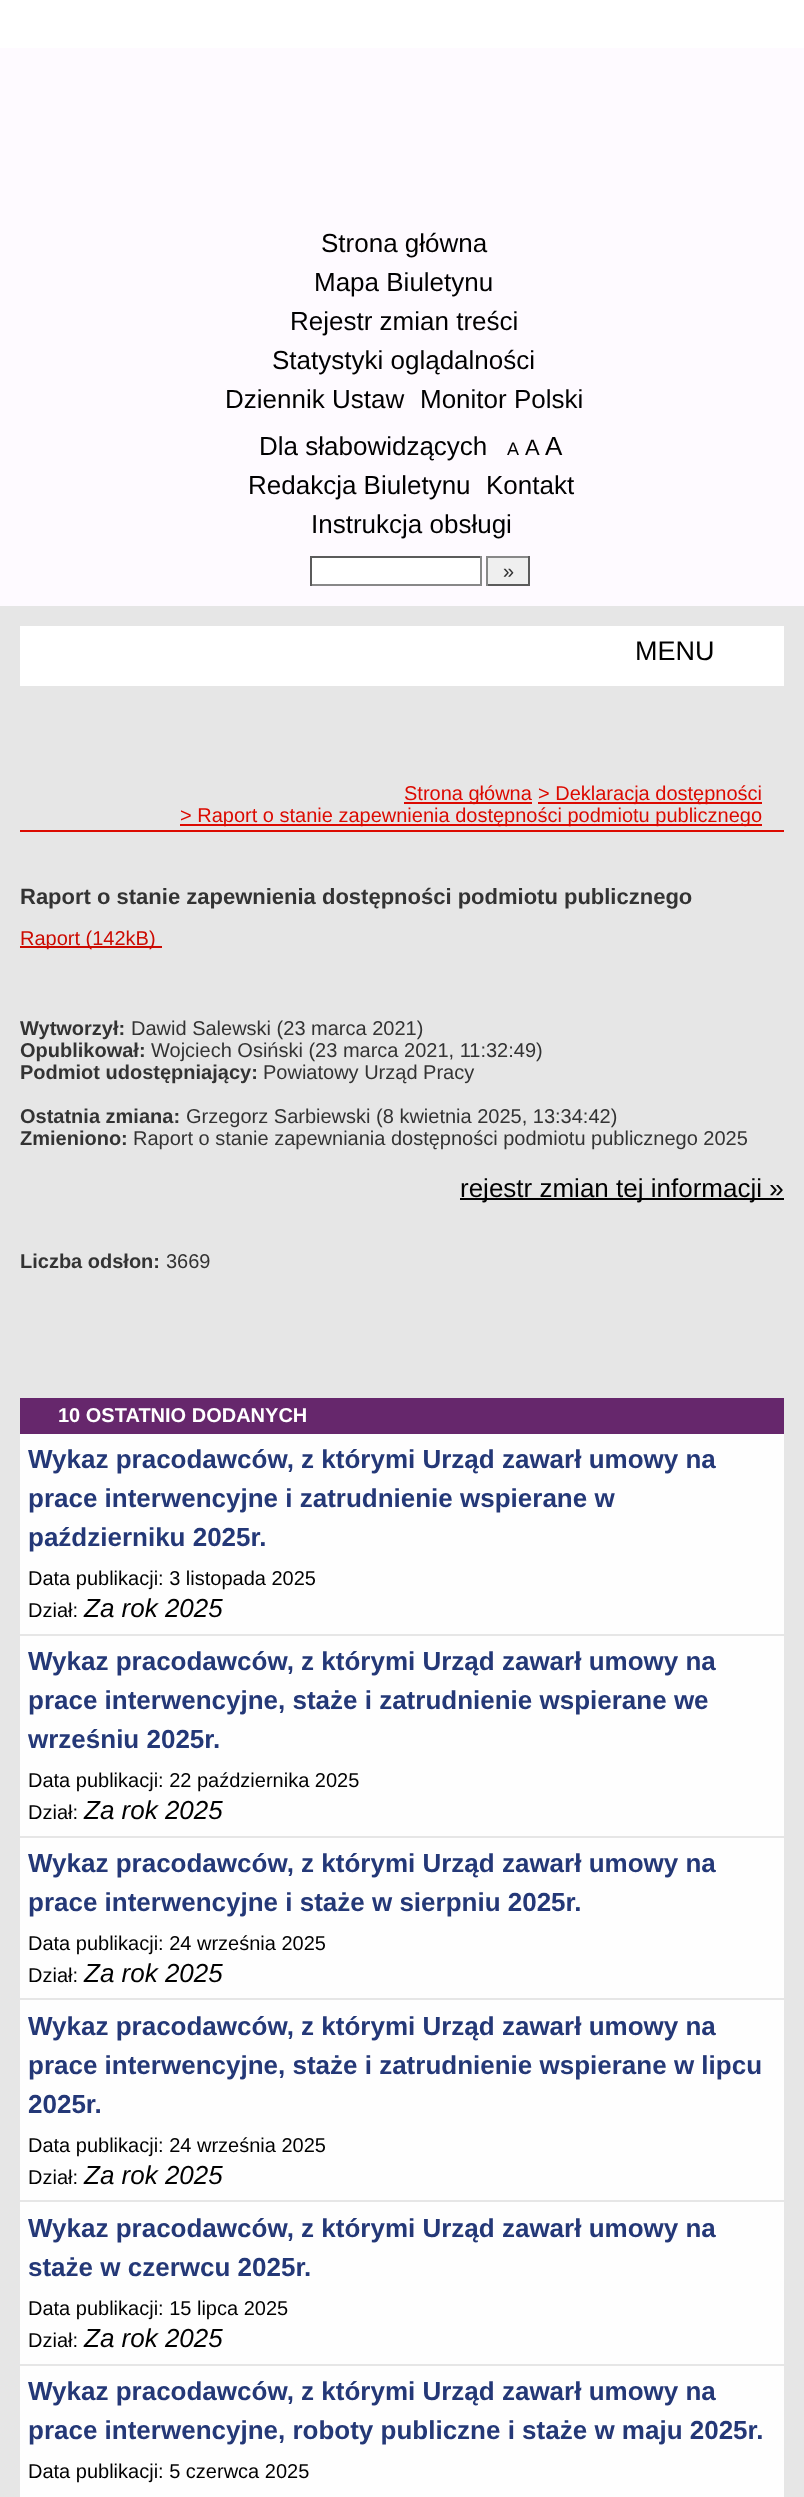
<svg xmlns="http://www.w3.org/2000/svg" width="804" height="2497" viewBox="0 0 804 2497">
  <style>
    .t1 { font: 26px Liberation Sans; fill: #000; }
    .t2 { font: 18px Liberation Sans; fill: #000; }
    .t3 { font: 22px Liberation Sans; fill: #000; }
    .t4 { font: 20px Liberation Sans; fill: #333; }
    .t5 { font: 27px Liberation Sans; fill: #000; }
    .t6 { font: 20px Liberation Sans; fill: #dc0a01; }
    .t7 { font: bold 22px Liberation Sans; fill: #333; }
    .t8 { font: 20px Liberation Sans; fill: #cc0a01; }
    .t9 { font: bold 20px Liberation Sans; fill: #333; }
    .t10 { font: bold 20px Liberation Sans; fill: #fff; }
    .t11 { font: bold 26px Liberation Sans; fill: #243877; }
    .t12 { font: 20px Liberation Sans; fill: #000; }
    .t13 { font: italic 26px Liberation Sans; fill: #000; }
  </style>
  <rect width="100%" height="100%" fill="#fff"/>
  <rect x="0" y="48" width="804" height="558" fill="#fefaff"/>
  <text x="321" y="252" class="t1">Strona główna</text>
  <text x="314" y="291" class="t1">Mapa Biuletynu</text>
  <text x="290" y="330" class="t1">Rejestr zmian treści</text>
  <text x="272" y="369" class="t1">Statystyki oglądalności</text>
  <text x="225" y="408" class="t1">Dziennik Ustaw</text>
  <text x="420" y="408" class="t1">Monitor Polski</text>
  <text x="259" y="455" class="t1">Dla słabowidzących</text>
  <text x="507" y="455" class="t2">A</text>
  <text x="525" y="455" class="t3">A</text>
  <text x="545" y="455" class="t1">A</text>
  <text x="248" y="494" class="t1">Redakcja Biuletynu</text>
  <text x="486" y="494" class="t1">Kontakt</text>
  <text x="311" y="533" class="t1">Instrukcja obsługi</text>
  <rect x="312" y="558" width="168" height="26" fill="#fff"/>
  <rect x="310" y="556" width="172" height="2" fill="#5b5b5b"/>
  <rect x="480" y="556" width="2" height="30" fill="#888"/>
  <rect x="310" y="584" width="172" height="2" fill="#888"/>
  <rect x="310" y="556" width="2" height="30" fill="#5b5b5b"/>
  <rect x="488" y="558" width="40" height="26" fill="#efefef"/>
  <rect x="486" y="556" width="44" height="2" fill="#888"/>
  <rect x="528" y="556" width="2" height="30" fill="#5b5b5b"/>
  <rect x="486" y="584" width="44" height="2" fill="#5b5b5b"/>
  <rect x="486" y="556" width="2" height="30" fill="#888"/>
  <text x="503" y="578" class="t4">»</text>
  <rect x="0" y="606" width="804" height="1891" fill="#e6e6e6"/>
  <rect x="20" y="626" width="764" height="60" fill="#fff"/>
  <text x="635" y="660" class="t5">MENU</text>
  <rect x="20" y="830" width="764" height="2" fill="#dc0a01"/>
  <rect x="404" y="802" width="128" height="2" fill="#dc0a01"/>
  <text x="404" y="800" class="t6">Strona główna</text>
  <rect x="538" y="802" width="224" height="2" fill="#dc0a01"/>
  <text x="538" y="800" class="t6">&gt; Deklaracja dostępności</text>
  <rect x="180" y="824" width="582" height="2" fill="#dc0a01"/>
  <text x="180" y="822" class="t6">&gt; Raport o stanie zapewnienia dostępności podmiotu publicznego</text>
  <text x="20" y="904" class="t7">Raport o stanie zapewnienia dostępności podmiotu publicznego</text>
  <rect x="20" y="946" width="142" height="2" fill="#cc0a01"/>
  <text x="20" y="945" class="t8">Raport (142kB)</text>
  <text x="20" y="1035" class="t9">Wytworzył:</text>
  <text x="131" y="1035" class="t4">Dawid Salewski (23 marca 2021)</text>
  <text x="20" y="1057" class="t9">Opublikował:</text>
  <text x="151" y="1057" class="t4">Wojciech Osiński (23 marca 2021, 11:32:49)</text>
  <text x="20" y="1079" class="t9">Podmiot udostępniający:</text>
  <text x="263" y="1079" class="t4">Powiatowy Urząd Pracy</text>
  <text x="20" y="1123" class="t9">Ostatnia zmiana:</text>
  <text x="186" y="1123" class="t4">Grzegorz Sarbiewski (8 kwietnia 2025, 13:34:42)</text>
  <text x="20" y="1145" class="t9">Zmieniono:</text>
  <text x="133" y="1145" class="t4">Raport o stanie zapewniania dostępności podmiotu publicznego 2025</text>
  <rect x="460" y="1198" width="324" height="2" fill="#000"/>
  <text x="460" y="1197" class="t1">rejestr zmian tej informacji »</text>
  <text x="20" y="1268" class="t9">Liczba odsłon:</text>
  <text x="166" y="1268" class="t4">3669</text>
  <rect x="20" y="1398" width="764" height="36" fill="#66276c"/>
  <text x="58" y="1422" class="t10">10 OSTATNIO DODANYCH</text>
  <rect x="20" y="1434" width="764" height="200" fill="#fefefe"/>
  <text x="28" y="1468" class="t11">Wykaz pracodawców, z którymi Urząd zawarł umowy na</text>
  <text x="28" y="1507" class="t11">prace interwencyjne i zatrudnienie wspierane w</text>
  <text x="28" y="1546" class="t11">październiku 2025r.</text>
  <text x="28" y="1585" class="t12">Data publikacji: 3 listopada 2025</text>
  <text x="28" y="1617" class="t12">Dział:</text>
  <text x="84" y="1617" class="t13">Za rok 2025</text>
  <rect x="20" y="1636" width="764" height="200" fill="#fefefe"/>
  <text x="28" y="1670" class="t11">Wykaz pracodawców, z którymi Urząd zawarł umowy na</text>
  <text x="28" y="1709" class="t11">prace interwencyjne, staże i zatrudnienie wspierane we</text>
  <text x="28" y="1748" class="t11">wrześniu 2025r.</text>
  <text x="28" y="1787" class="t12">Data publikacji: 22 października 2025</text>
  <text x="28" y="1819" class="t12">Dział:</text>
  <text x="84" y="1819" class="t13">Za rok 2025</text>
  <rect x="20" y="1838" width="764" height="160" fill="#fefefe"/>
  <text x="28" y="1872" class="t11">Wykaz pracodawców, z którymi Urząd zawarł umowy na</text>
  <text x="28" y="1911" class="t11">prace interwencyjne i staże w sierpniu 2025r.</text>
  <text x="28" y="1950" class="t12">Data publikacji: 24 września 2025</text>
  <text x="28" y="1982" class="t12">Dział:</text>
  <text x="84" y="1982" class="t13">Za rok 2025</text>
  <rect x="20" y="2000" width="764" height="200" fill="#fefefe"/>
  <text x="28" y="2035" class="t11">Wykaz pracodawców, z którymi Urząd zawarł umowy na</text>
  <text x="28" y="2074" class="t11">prace interwencyjne, staże i zatrudnienie wspierane w lipcu</text>
  <text x="28" y="2113" class="t11">2025r.</text>
  <text x="28" y="2152" class="t12">Data publikacji: 24 września 2025</text>
  <text x="28" y="2184" class="t12">Dział:</text>
  <text x="84" y="2184" class="t13">Za rok 2025</text>
  <rect x="20" y="2202" width="764" height="162" fill="#fefefe"/>
  <text x="28" y="2237" class="t11">Wykaz pracodawców, z którymi Urząd zawarł umowy na</text>
  <text x="28" y="2276" class="t11">staże w czerwcu 2025r.</text>
  <text x="28" y="2315" class="t12">Data publikacji: 15 lipca 2025</text>
  <text x="28" y="2347" class="t12">Dział:</text>
  <text x="84" y="2347" class="t13">Za rok 2025</text>
  <rect x="20" y="2366" width="764" height="131" fill="#fefefe"/>
  <text x="28" y="2400" class="t11">Wykaz pracodawców, z którymi Urząd zawarł umowy na</text>
  <text x="28" y="2439" class="t11">prace interwencyjne, roboty publiczne i staże w maju 2025r.</text>
  <text x="28" y="2478" class="t12">Data publikacji: 5 czerwca 2025</text>
</svg>
